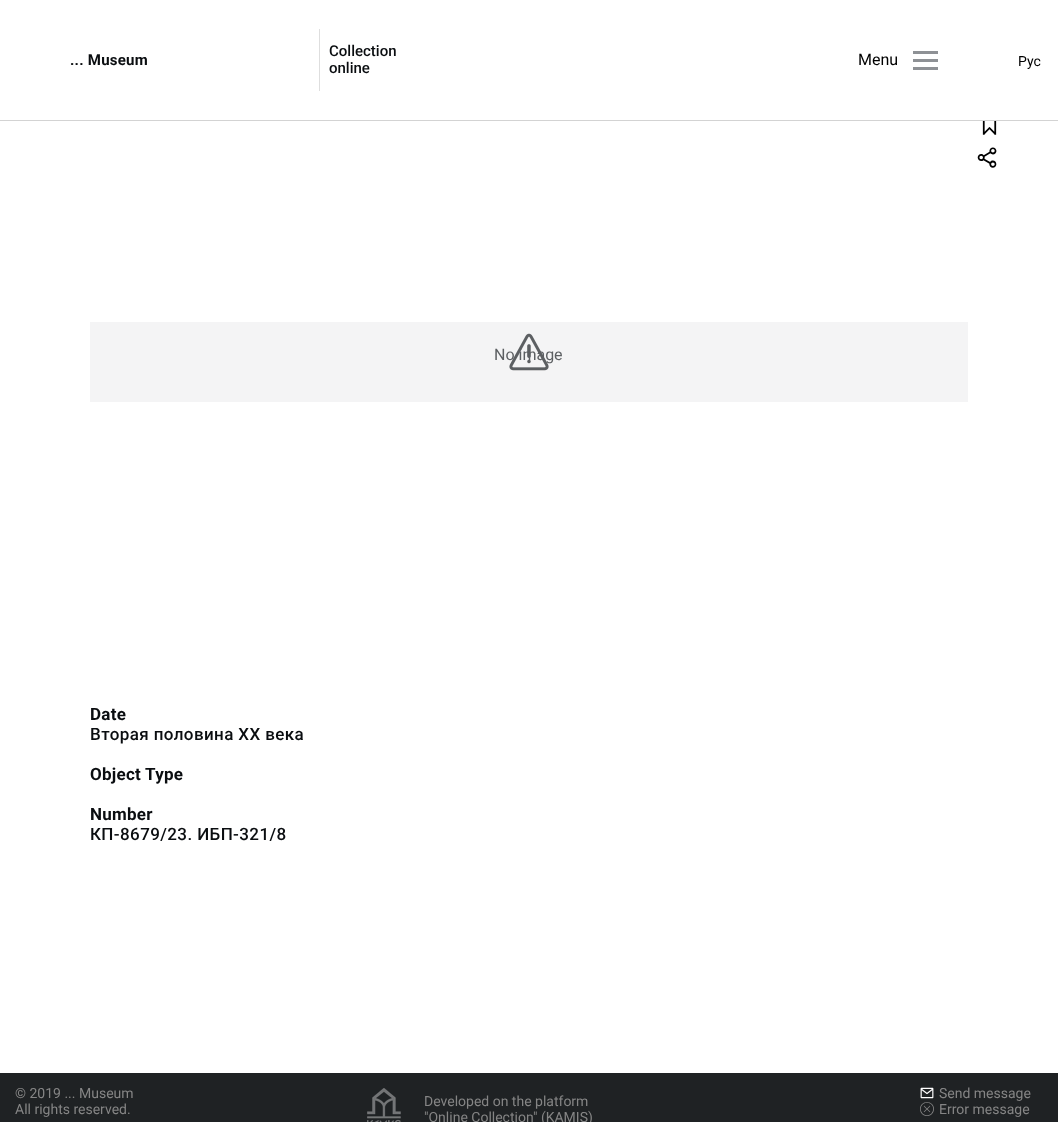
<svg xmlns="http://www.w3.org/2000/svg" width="1058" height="1122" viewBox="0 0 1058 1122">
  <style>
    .t1 { font: bold 15px Roboto; letter-spacing: 0.25px; fill: #0a0d10; }
    .t2 { font: 500 15px Roboto; fill: #0a0d10; }
    .t3 { font: 16px Roboto; fill: #000; }
    .t4 { font: 14px Roboto; fill: #000; }
    .t5 { font: 16px Roboto; fill: #5c5f62; }
    .t6 { font: bold 17px Roboto; letter-spacing: 0.25px; fill: #0a0d10; }
    .t7 { font: 500 17px Roboto; letter-spacing: 0.4px; fill: #0a0d10; }
    .t8 { font: 14px Roboto; fill: #858585; }
  </style>
  <rect width="100%" height="100%" fill="#fff"/>
  <rect x="0" y="120" width="1058" height="1" fill="#d3d3d3"/>
  <text x="70" y="65" class="t1">... Museum</text>
  <rect x="319" y="29" width="1" height="62" fill="#dedede"/>
  <text x="329" y="56" class="t2">Collection</text>
  <text x="329" y="73" class="t2">online</text>
  <rect x="913" y="51" width="25" height="3" fill="#8e9195"/>
  <text x="858" y="65" class="t3">Menu</text>
  <rect x="913" y="59" width="25" height="3" fill="#8e9195"/>
  <rect x="913" y="67" width="25" height="3" fill="#8e9195"/>
  <text x="1018" y="66" class="t4">Рус</text>
  <rect x="90" y="322" width="878" height="80" fill="#f4f4f5"/>
  <text x="494" y="360" class="t5">No image</text>
  <image x="509" y="333" width="40" height="38" href="images/1.png"/>
  <image x="982" y="121" width="15" height="14" href="images/2.png"/>
  <image x="977" y="147" width="20" height="21" href="images/3.png"/>
  <text x="90" y="720" class="t6">Date</text>
  <text x="90" y="740" class="t7">Вторая половина XX века</text>
  <text x="90" y="780" class="t6">Object Type</text>
  <text x="90" y="820" class="t6">Number</text>
  <text x="90" y="840" class="t7">КП-8679/23. ИБП-321/8</text>
  <rect x="0" y="1073" width="1058" height="49" fill="#1f2224"/>
  <text x="15" y="1098" class="t8">© 2019 ... Museum</text>
  <text x="15" y="1114" class="t8">All rights reserved.</text>
  <image x="367" y="1088" width="34" height="34" href="images/4.png"/>
  <text x="424" y="1106" class="t8">Developed on the platform</text>
  <text x="424" y="1122" class="t8">"Online Collection" (KAMIS)</text>
  <image x="920" y="1087" width="14" height="12" href="images/5.png"/>
  <text x="939" y="1098" class="t8">Send message</text>
  <image x="920" y="1102" width="14" height="14" href="images/6.png"/>
  <text x="939" y="1114" class="t8">Error message</text>
</svg>
